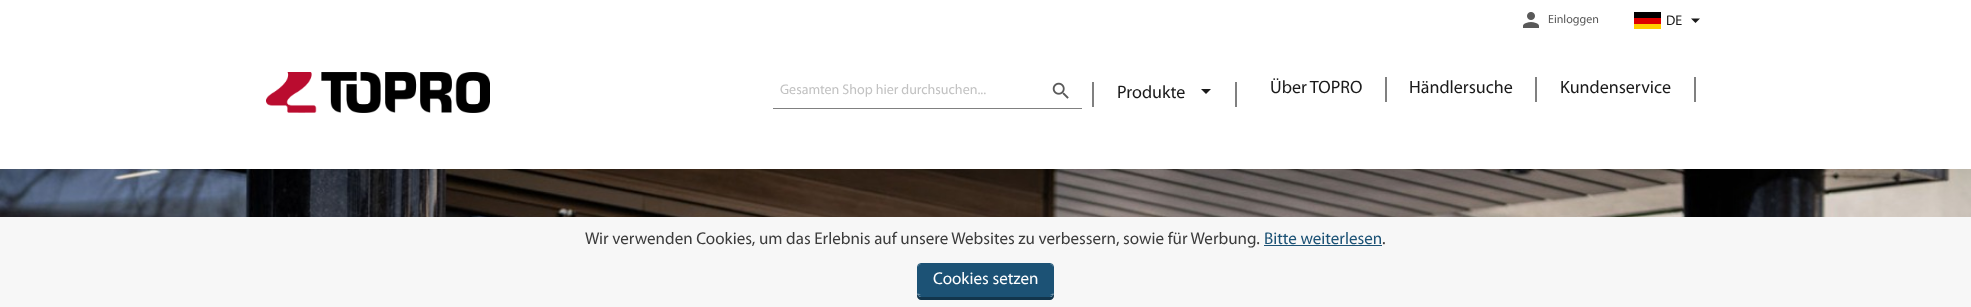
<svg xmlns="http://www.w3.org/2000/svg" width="1971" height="307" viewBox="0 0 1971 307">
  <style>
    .t1 { font: 12px Myriad; fill: #595959; }
    .t2 { font: 14px Myriad; fill: #1a1a1a; }
    .t3 { font: 14px Myriad; fill: #c2c2c2; }
    .t4 { font: 18px Myriad; fill: #1a1a1a; }
    .t5 { font: 17px Myriad; fill: #3c3c3c; }
    .t6 { font: 17px Myriad; fill: #1c5275; }
    .t7 { font: 17px Myriad; fill: #fff; }
  </style>
  <rect width="100%" height="100%" fill="#fff"/>
  <image x="1523" y="12" width="16" height="16" href="images/1.png"/>
  <text x="1548" y="23" class="t1">Einloggen</text>
  <rect x="1634" y="12" width="27" height="6" fill="#000"/>
  <rect x="1634" y="18" width="27" height="6" fill="#d00"/>
  <rect x="1634" y="24" width="27" height="5" fill="#ffce00"/>
  <text x="1666" y="25" class="t2">DE</text>
  <path d="M1691 18.5H1700L1695.5 23Z" fill="#1a1a1a"/>
  <image x="266" y="72" width="224" height="41" href="images/2.png"/>
  <rect x="773" y="108" width="309" height="1" fill="#808080"/>
  <text x="780" y="94" class="t3">Gesamten Shop hier durchsuchen...</text>
  <image x="1052" y="82" width="17" height="17" href="images/3.png"/>
  <rect x="1235" y="82" width="2" height="25" fill="#808080"/>
  <rect x="1092" y="82" width="2" height="25" fill="#808080"/>
  <text x="1117" y="98" class="t4">Produkte</text>
  <path d="M1201 89H1211L1206 94Z" fill="#1a1a1a"/>
  <rect x="1385" y="77" width="2" height="25" fill="#808080"/>
  <text x="1270" y="93" class="t4">Über TOPRO</text>
  <rect x="1535" y="77" width="2" height="25" fill="#808080"/>
  <text x="1409" y="93" class="t4">Händlersuche</text>
  <rect x="1694" y="77" width="2" height="25" fill="#808080"/>
  <text x="1560" y="93" class="t4">Kundenservice</text>
  <image x="0" y="169" width="1971" height="48" href="images/4.png"/>
  <rect x="0" y="217" width="1971" height="90" fill="#f7f7f7"/>
  <text x="585" y="244" class="t5">Wir verwenden Cookies, um das Erlebnis auf unsere Websites zu verbessern, sowie für Werbung.</text>
  <text x="1264" y="244" class="t6">Bitte weiterlesen</text>
  <rect x="1264" y="245" width="118" height="1" fill="#1c5275"/>
  <text x="1382" y="244" class="t5">.</text>
  <path d="M917 293V296C917 298 919 300 921 300H1050C1052 300 1054 298 1054 296V293C1054 295 1052 297 1050 297H921C919 297 917 295 917 293Z" fill="#12354c"/>
  <path d="M921 264H1050C1052 264 1053 265 1053 267V293C1053 294 1052 295 1050 295H921C919 295 918 294 918 293V267C918 265 919 264 921 264Z" fill="#1c5275"/>
  <rect x="917.5" y="263.5" width="136" height="33" rx="3.5" fill="none" stroke="#1c5275"/>
  <rect x="919" y="295" width="133" height="1" fill="#1c5275"/>
  <text x="933" y="284" class="t7">Cookies setzen</text>
</svg>
